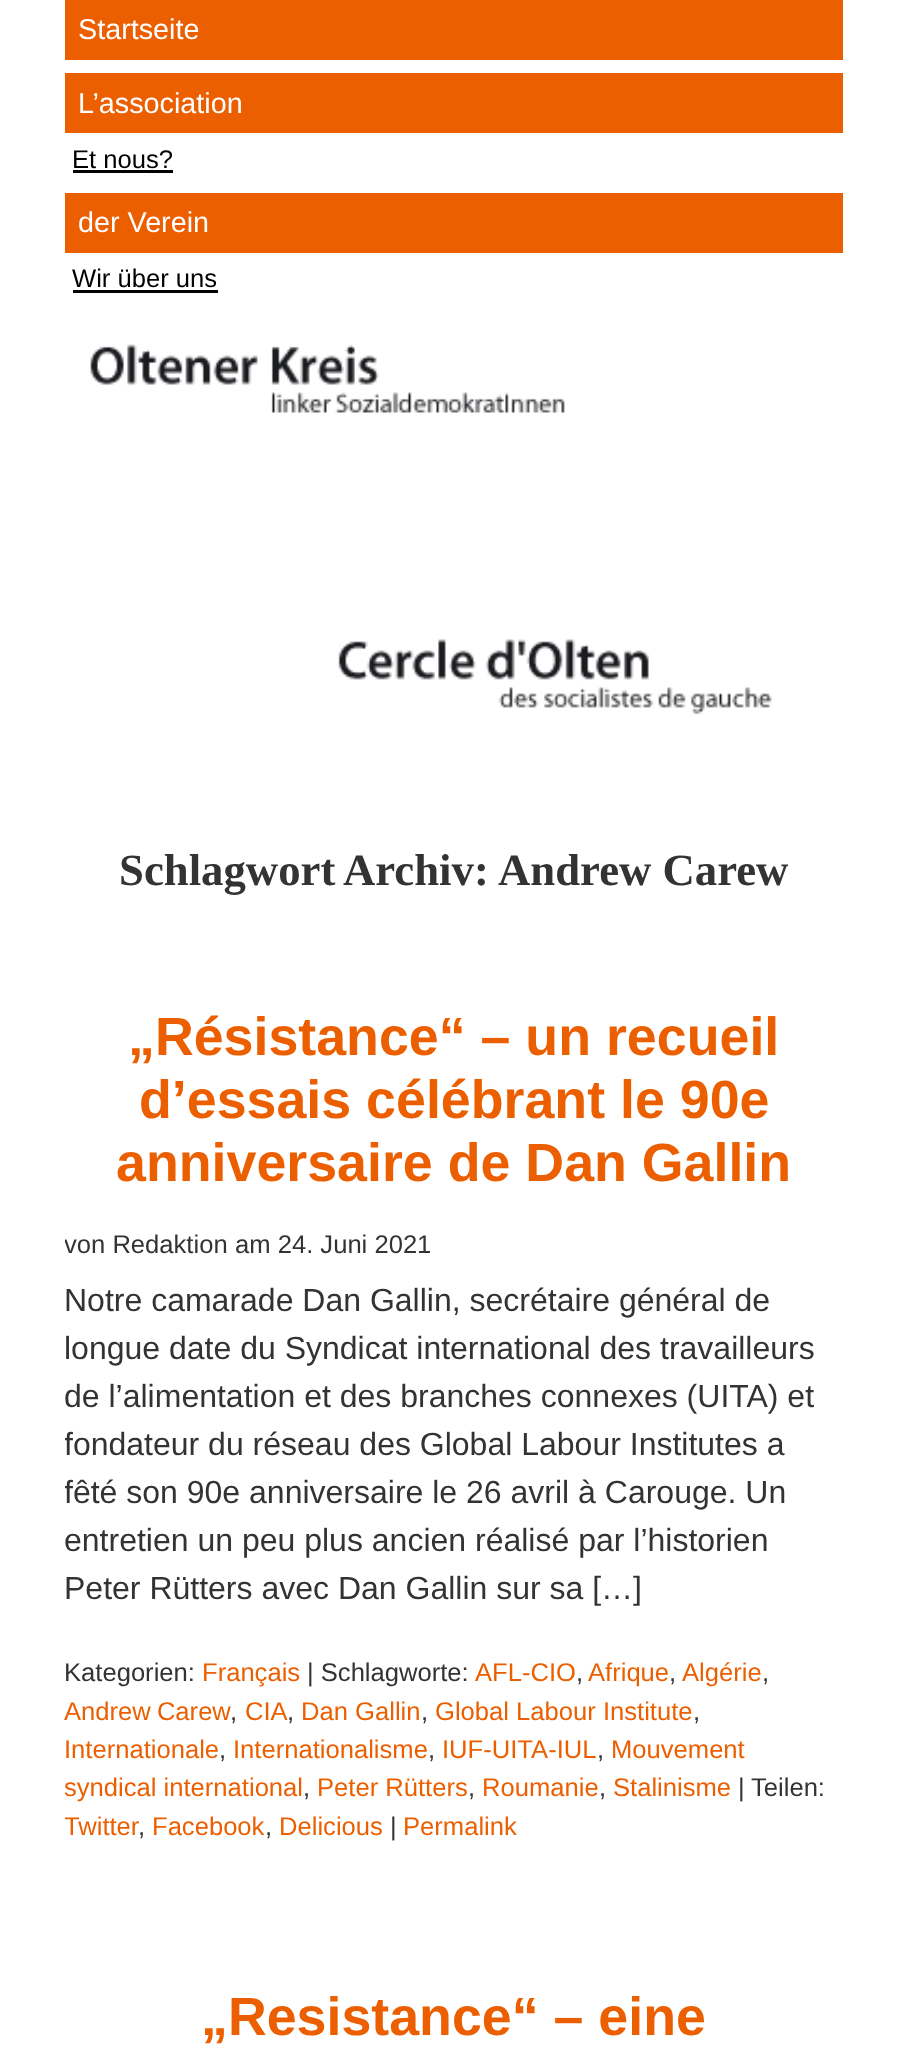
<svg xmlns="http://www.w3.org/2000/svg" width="906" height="2070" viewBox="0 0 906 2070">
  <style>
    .t1 { font: 28.75px Liberation Sans; fill: #fff; }
    .t2 { font: 25.6px Liberation Sans; fill: #000; }
    .t3 { font: bold 44.75px Liberation Serif; fill: #333; }
    .t4 { font: bold 53.75px Liberation Sans; fill: #ec5f00; }
    .t5 { font: 25.6px Liberation Sans; fill: #333; }
    .t6 { font: 32px Liberation Sans; fill: #333; }
    .t7 { font: 25.6px Liberation Sans; fill: #ec5f00; }
  </style>
  <defs>
    <clipPath id="clip1"><rect x="65" y="930" width="778" height="980"/></clipPath>
  </defs>
  <rect width="100%" height="100%" fill="#fff"/>
  <rect x="65" y="0" width="778" height="60" fill="#ec5f00"/>
  <text x="78" y="39" class="t1">Startseite</text>
  <rect x="65" y="73" width="778" height="60" fill="#ec5f00"/>
  <text x="78" y="113" class="t1">L’association</text>
  <text x="72" y="168" class="t2">Et nous?</text>
  <rect x="73" y="170" width="100" height="3" fill="#000"/>
  <rect x="65" y="193" width="778" height="60" fill="#ec5f00"/>
  <text x="78" y="232" class="t1">der Verein</text>
  <text x="72" y="287" class="t2">Wir über uns</text>
  <rect x="73" y="290" width="145" height="3" fill="#000"/>
  <image x="90" y="344" width="682" height="371" href="images/1.png"/>
  <text x="119" y="885" word-spacing="-1" class="t3">Schlagwort Archiv:</text>
  <text x="498" y="885" class="t3">Andrew Carew</text>
  <text x="128" y="1055" class="t4">„Résistance“ – un recueil</text>
  <text x="139" y="1118" class="t4">d’essais célébrant le 90e</text>
  <text x="116" y="1181" class="t4">anniversaire de Dan Gallin</text>
  <g clip-path="url(#clip1)">
    <text x="64" y="1253" class="t5">von Redaktion</text>
  </g>
  <text x="235" y="1253" class="t5">am 24. Juni 2021</text>
  <text x="64" y="1311" class="t6">Notre camarade Dan Gallin, secrétaire général de</text>
  <text x="64" y="1359" class="t6">longue date du Syndicat international des travailleurs</text>
  <text x="64" y="1407" class="t6">de l’alimentation et des branches connexes (UITA) et</text>
  <g clip-path="url(#clip1)">
    <text x="64" y="1455" class="t6">fondateur du réseau des Global Labour Institutes a</text>
    <text x="64" y="1503" class="t6">fêté son 90e anniversaire le 26 avril à Carouge. Un</text>
  </g>
  <text x="64" y="1551" class="t6">entretien un peu plus ancien réalisé par l’historien</text>
  <text x="64" y="1599" class="t6">Peter Rütters avec Dan Gallin sur sa […]</text>
  <text x="64" y="1681" class="t5">Kategorien:</text>
  <text x="202" y="1681" class="t7">Français</text>
  <text x="307" y="1681" class="t5">| Schlagworte:</text>
  <text x="475" y="1681" class="t7">AFL-CIO</text>
  <text x="576" y="1681" class="t5">,</text>
  <text x="588" y="1681" class="t7">Afrique</text>
  <text x="669" y="1681" class="t5">,</text>
  <text x="682" y="1681" class="t7">Algérie</text>
  <text x="762" y="1681" class="t5">,</text>
  <text x="64" y="1720" word-spacing="-1" class="t7">Andrew Carew</text>
  <text x="230" y="1720" class="t5">,</text>
  <text x="245" y="1720" class="t7">CIA</text>
  <text x="287" y="1720" class="t5">,</text>
  <text x="301" y="1720" class="t7">Dan Gallin</text>
  <text x="421" y="1720" class="t5">,</text>
  <text x="435" y="1720" class="t7">Global Labour Institute</text>
  <text x="693" y="1720" class="t5">,</text>
  <text x="64" y="1758" class="t7">Internationale</text>
  <text x="219" y="1758" class="t5">,</text>
  <text x="233" y="1758" class="t7">Internationalisme</text>
  <text x="428" y="1758" class="t5">,</text>
  <text x="442" y="1758" class="t7">IUF-UITA-IUL</text>
  <text x="597" y="1758" class="t5">,</text>
  <text x="611" y="1758" class="t7">Mouvement</text>
  <text x="64" y="1796" class="t7">syndical international</text>
  <text x="303" y="1796" class="t5">,</text>
  <text x="317" y="1796" class="t7">Peter Rütters</text>
  <text x="468" y="1796" class="t5">,</text>
  <text x="482" y="1796" class="t7">Roumanie</text>
  <text x="599" y="1796" class="t5">,</text>
  <text x="613" y="1796" class="t7">Stalinisme</text>
  <text x="738" y="1796" class="t5">|</text>
  <text x="751" y="1796" class="t5">Teilen:</text>
  <g clip-path="url(#clip1)">
    <text x="64" y="1835" class="t7">Twitter</text>
  </g>
  <text x="138" y="1835" class="t5">,</text>
  <text x="152" y="1835" class="t7">Facebook</text>
  <text x="265" y="1835" class="t5">,</text>
  <text x="279" y="1835" class="t7">Delicious</text>
  <text x="390" y="1835" class="t5">|</text>
  <text x="403" y="1835" class="t7">Permalink</text>
  <text x="201" y="2035" class="t4">„Resistance“ – eine</text>
</svg>
